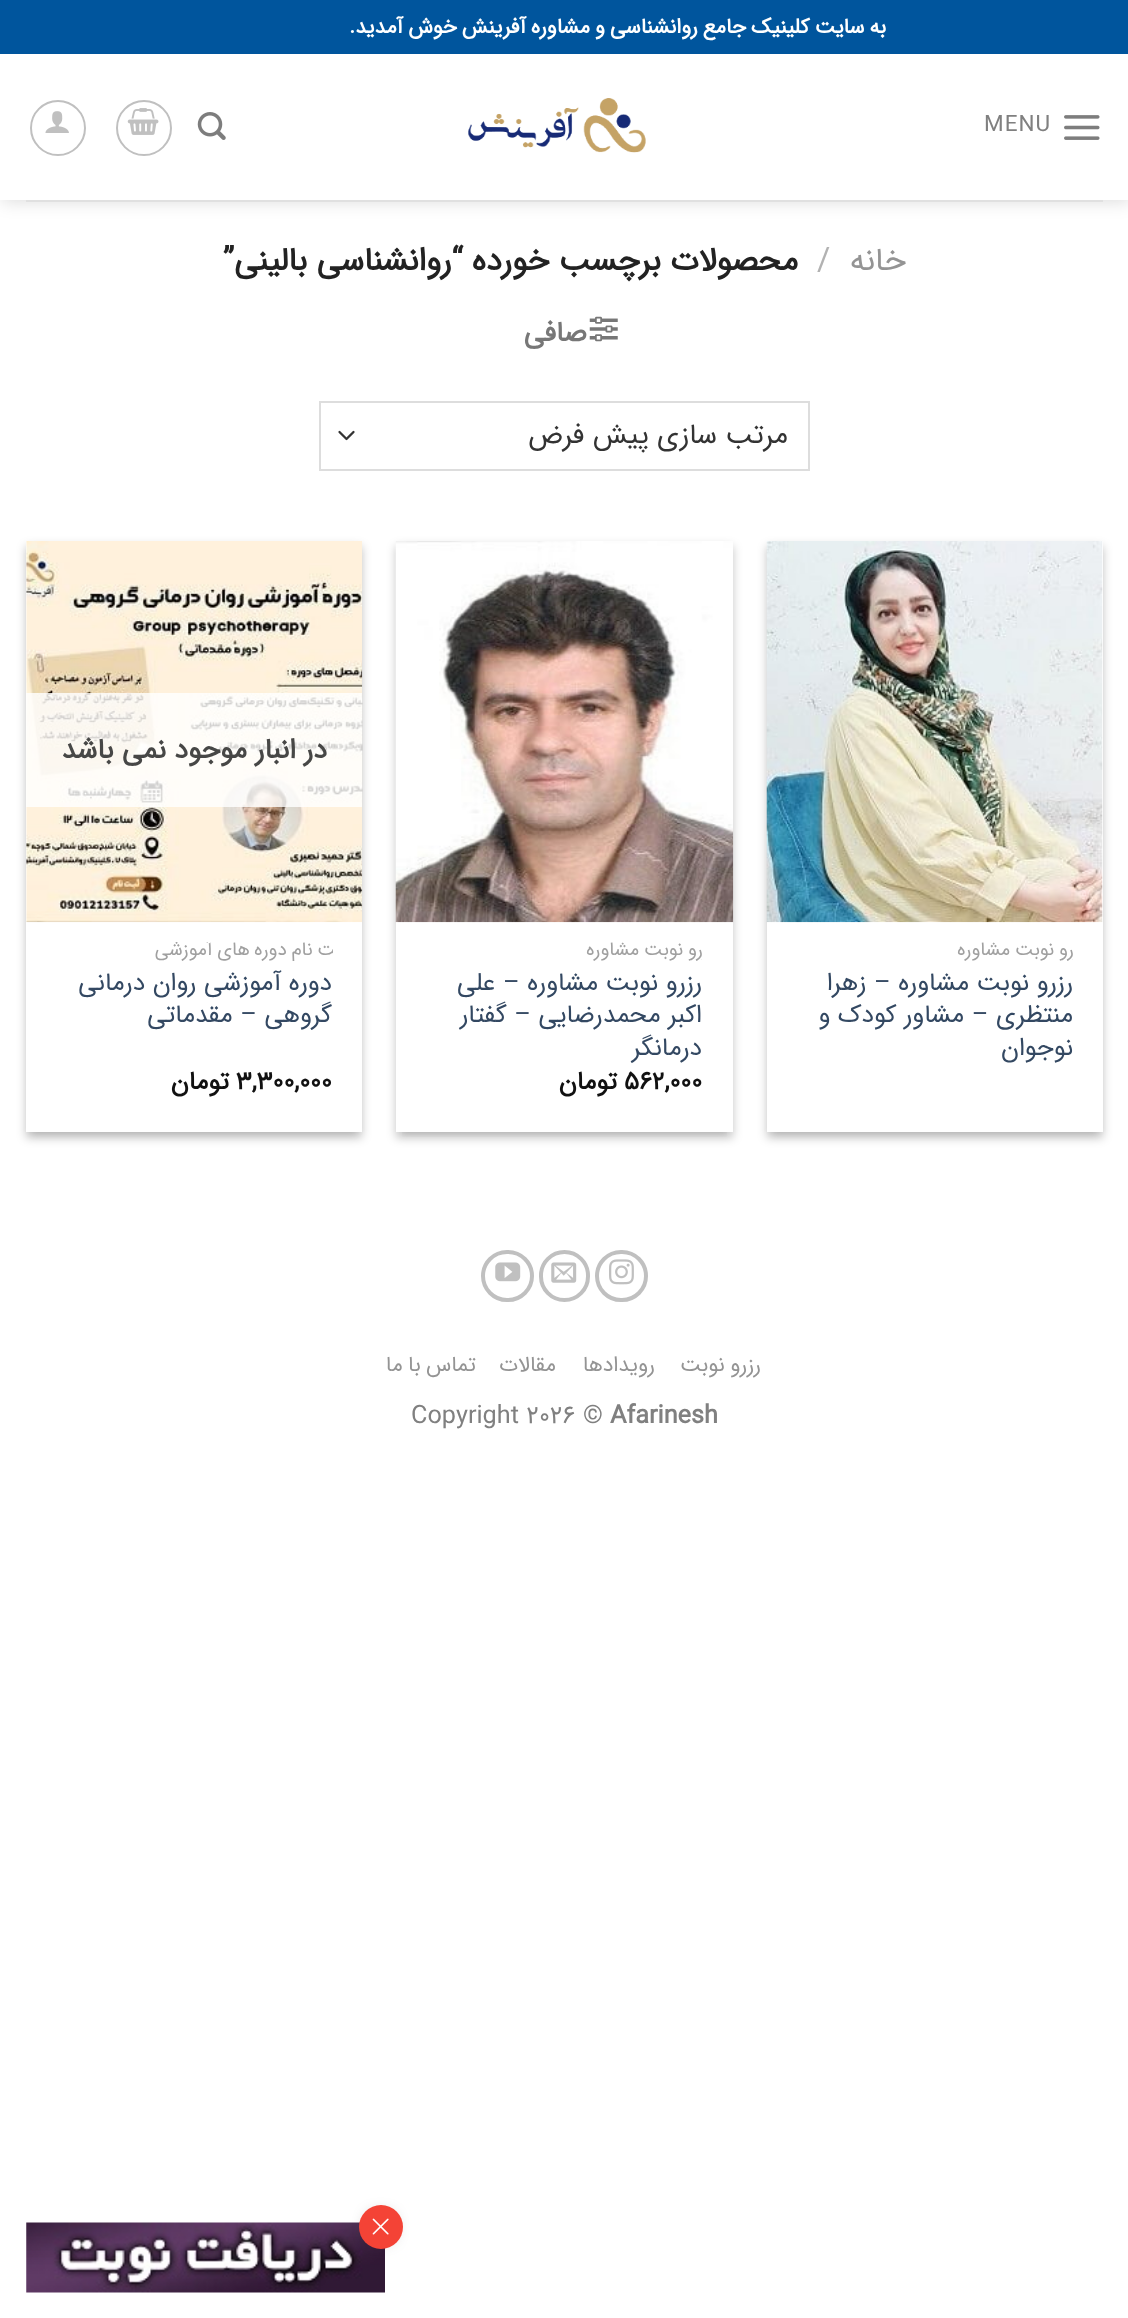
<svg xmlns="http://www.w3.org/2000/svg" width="1128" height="2318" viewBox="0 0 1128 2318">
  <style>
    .t1 { font: bold 21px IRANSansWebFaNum; letter-spacing: 1.05px; direction: rtl; fill: #fff; }
    .t2 { font: 22.5px IRANSansWebFaNum; letter-spacing: 1px; fill: #808080; }
    .t3 { font: 32.25px IRANSansWebFaNum; direction: rtl; fill: #949494; }
    .t4 { font: 32.25px IRANSansWebFaNum; fill: #b2b2b2; }
    .t5 { font: bold 32.25px IRANSansWebFaNum; direction: rtl; fill: #222; }
    .t6 { font: bold 28px IRANSansWebFaNum; letter-spacing: 1.5px; direction: rtl; fill: #777; }
    .t7 { font: 28px IRANSansWebFaNum; direction: rtl; fill: #333; }
    .t8 { font: 18.9px IRANSansWebFaNum; letter-spacing: 0.95px; direction: rtl; fill: #a0a0a0; }
    .t9 { font: 25.25px IRANSansWebFaNum; direction: rtl; fill: #334862; }
    .t10 { font: bold 25.25px IRANSansWebFaNum; fill: #111; }
    .t11 { font: bold 25.25px IRANSansWebFaNum; direction: rtl; fill: #111; }
    .t12 { font: bold 28px IRANSansWebFaNum; direction: rtl; fill: #474746; }
    .t13 { font: 21.5px IRANSansWebFaNum; letter-spacing: 1px; direction: rtl; fill: #949494; }
    .t14 { font: bold 25.25px IRANSansWebFaNum; fill: #808080; }
    .t15 { font: 25.25px IRANSansWebFaNum; fill: #808080; }
  </style>
  <defs>
    <clipPath id="clip1"><path d="M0 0H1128V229H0ZM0 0H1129V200H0Z" clip-rule="evenodd"/></clipPath>
    <clipPath id="clip2"><rect x="796" y="942" width="277" height="22"/></clipPath>
    <clipPath id="clip3"><path d="M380 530H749V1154H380ZM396 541H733V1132H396Z" clip-rule="evenodd"/></clipPath>
    <clipPath id="clip4"><rect x="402" y="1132" width="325" height="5"/></clipPath>
    <clipPath id="clip5"><rect x="427" y="942" width="275" height="22"/></clipPath>
    <clipPath id="clip6"><rect x="56" y="942" width="277" height="22"/></clipPath>
  </defs>
  <rect width="100%" height="100%" fill="#fff"/>
  <g clip-path="url(#clip1)">
    <rect x="2" y="2" width="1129" height="199" fill="#00000026" filter="blur(9px)"/>
  </g>
  <rect x="0" y="0" width="1128" height="54" fill="#00559d"/>
  <text x="886" y="33" word-spacing="-1.25" class="t1">به سایت کلینیک جامع روانشناسی و مشاوره آفرینش خوش آمدید.</text>
  <image x="1064" y="115" width="36" height="25" href="images/1.png"/>
  <text x="984" y="131" class="t2">MENU</text>
  <image x="468" y="98" width="178" height="55" href="images/2.png"/>
  <image x="197" y="112" width="29" height="28" href="images/3.png"/>
  <circle cx="144" cy="128" r="27" fill="none" stroke="#c0c0c0" stroke-width="2"/>
  <image x="127" y="108" width="32" height="27" href="images/4.png"/>
  <circle cx="58" cy="128" r="27" fill="none" stroke="#c0c0c0" stroke-width="2"/>
  <image x="45" y="111" width="24" height="22" href="images/5.png"/>
  <rect x="26" y="200" width="1077" height="2" fill="#e0e0e0"/>
  <rect x="0" y="199" width="1128" height="1" fill="#ffffffe6"/>
  <text x="906" y="270" class="t3">خانه</text>
  <text x="817" y="270" class="t4">/</text>
  <text x="798" y="270" class="t5">محصولات برچسب خورده</text>
  <text x="463" y="270" class="t5">“روانشناسی بالینی”</text>
  <image x="589" y="316" width="29" height="26" href="images/6.png"/>
  <text x="587" y="341" class="t6">صافی</text>
  <path d="M339.5 432L346.5 439L353.5 432" fill="none" stroke="#333" stroke-width="2.3" stroke-linecap="round" stroke-linejoin="round"/>
  <rect x="320" y="402" width="489" height="68" fill="none" stroke="#ddd" stroke-width="2"/>
  <text x="788" y="443" class="t7">مرتب سازی پیش فرض</text>
  <rect x="767" y="546" width="336" height="592" fill="#0000003b" filter="blur(5px)"/>
  <rect x="774" y="553" width="322" height="578" fill="#00000029" filter="blur(5px)"/>
  <rect x="767" y="541" width="336" height="591" fill="#fff"/>
  <image x="766" y="541" width="337" height="382" href="images/7.png"/>
  <g clip-path="url(#clip2)">
    <text x="1086" y="955" word-spacing="-1" class="t8">رزرو نوبت مشاوره</text>
  </g>
  <text x="1073" y="990" class="t9">رزرو نوبت مشاوره – زهرا</text>
  <text x="1073" y="1022" class="t9">منتظری – مشاور کودک و</text>
  <text x="1073" y="1055" class="t9">نوجوان</text>
  <g clip-path="url(#clip3)">
    <rect x="396" y="546" width="337" height="592" fill="#0000003b" filter="blur(5px)"/>
  </g>
  <g clip-path="url(#clip4)">
    <rect x="403" y="553" width="323" height="578" fill="#00000029" filter="blur(5px)"/>
  </g>
  <image x="395" y="541" width="339" height="382" href="images/8.png"/>
  <g clip-path="url(#clip5)">
    <text x="715" y="955" word-spacing="-1" class="t8">رزرو نوبت مشاوره</text>
  </g>
  <text x="702" y="990" class="t9">رزرو نوبت مشاوره – علی</text>
  <text x="702" y="1022" class="t9">اکبر محمدرضایی – گفتار</text>
  <text x="702" y="1055" class="t9">درمانگر</text>
  <text x="624" y="1089" class="t10">562,000</text>
  <text x="617" y="1089" class="t11">تومان</text>
  <rect x="26" y="546" width="336" height="592" fill="#0000003b" filter="blur(5px)"/>
  <rect x="33" y="553" width="322" height="578" fill="#00000029" filter="blur(5px)"/>
  <rect x="26" y="541" width="336" height="591" fill="#fff"/>
  <image x="26" y="541" width="337" height="382" href="images/9.png"/>
  <rect x="26" y="693" width="336" height="114" fill="#ffffffcf"/>
  <text x="327" y="758" class="t12">در انبار موجود نمی باشد</text>
  <g clip-path="url(#clip6)">
    <text x="349" y="955" word-spacing="-1" class="t8">ثبت نام دوره های آموزشی</text>
  </g>
  <text x="332" y="990" class="t9">دوره آموزشی روان درمانی</text>
  <text x="332" y="1022" class="t9">گروهی – مقدماتی</text>
  <text x="236" y="1089" class="t10">3,300,000</text>
  <text x="229" y="1089" class="t11">تومان</text>
  <rect x="597" y="1252" width="49" height="48" rx="24" fill="none" stroke="#c0c0c0" stroke-width="4"/>
  <image x="609" y="1259" width="25" height="26" href="images/10.png"/>
  <rect x="541" y="1252" width="47" height="48" rx="23.5" fill="none" stroke="#c0c0c0" stroke-width="4"/>
  <image x="551" y="1262" width="26" height="21" href="images/11.png"/>
  <rect x="483" y="1252" width="49" height="48" rx="24" fill="none" stroke="#c0c0c0" stroke-width="4"/>
  <image x="495" y="1262" width="26" height="20" href="images/12.png"/>
  <text x="761" y="1371" word-spacing="-1" class="t13">رزرو نوبت</text>
  <text x="655" y="1371" class="t13">رویدادها</text>
  <text x="556" y="1371" class="t13">مقالات</text>
  <text x="476" y="1371" word-spacing="-1" class="t13">تماس با ما</text>
  <text x="610" y="1423" class="t14">Afarinesh</text>
  <text x="411" y="1423" class="t15">Copyright 2026 ©</text>
  <image x="26" y="2222" width="359" height="71" href="images/14.png"/>
  <rect x="371" y="2217" width="19" height="20" rx="9.5" fill="#000000cc" filter="blur(9px)"/>
  <circle cx="381" cy="2227" r="22" fill="#f44336"/>
  <image x="372" y="2218" width="17" height="17" href="images/13.png"/>
</svg>
